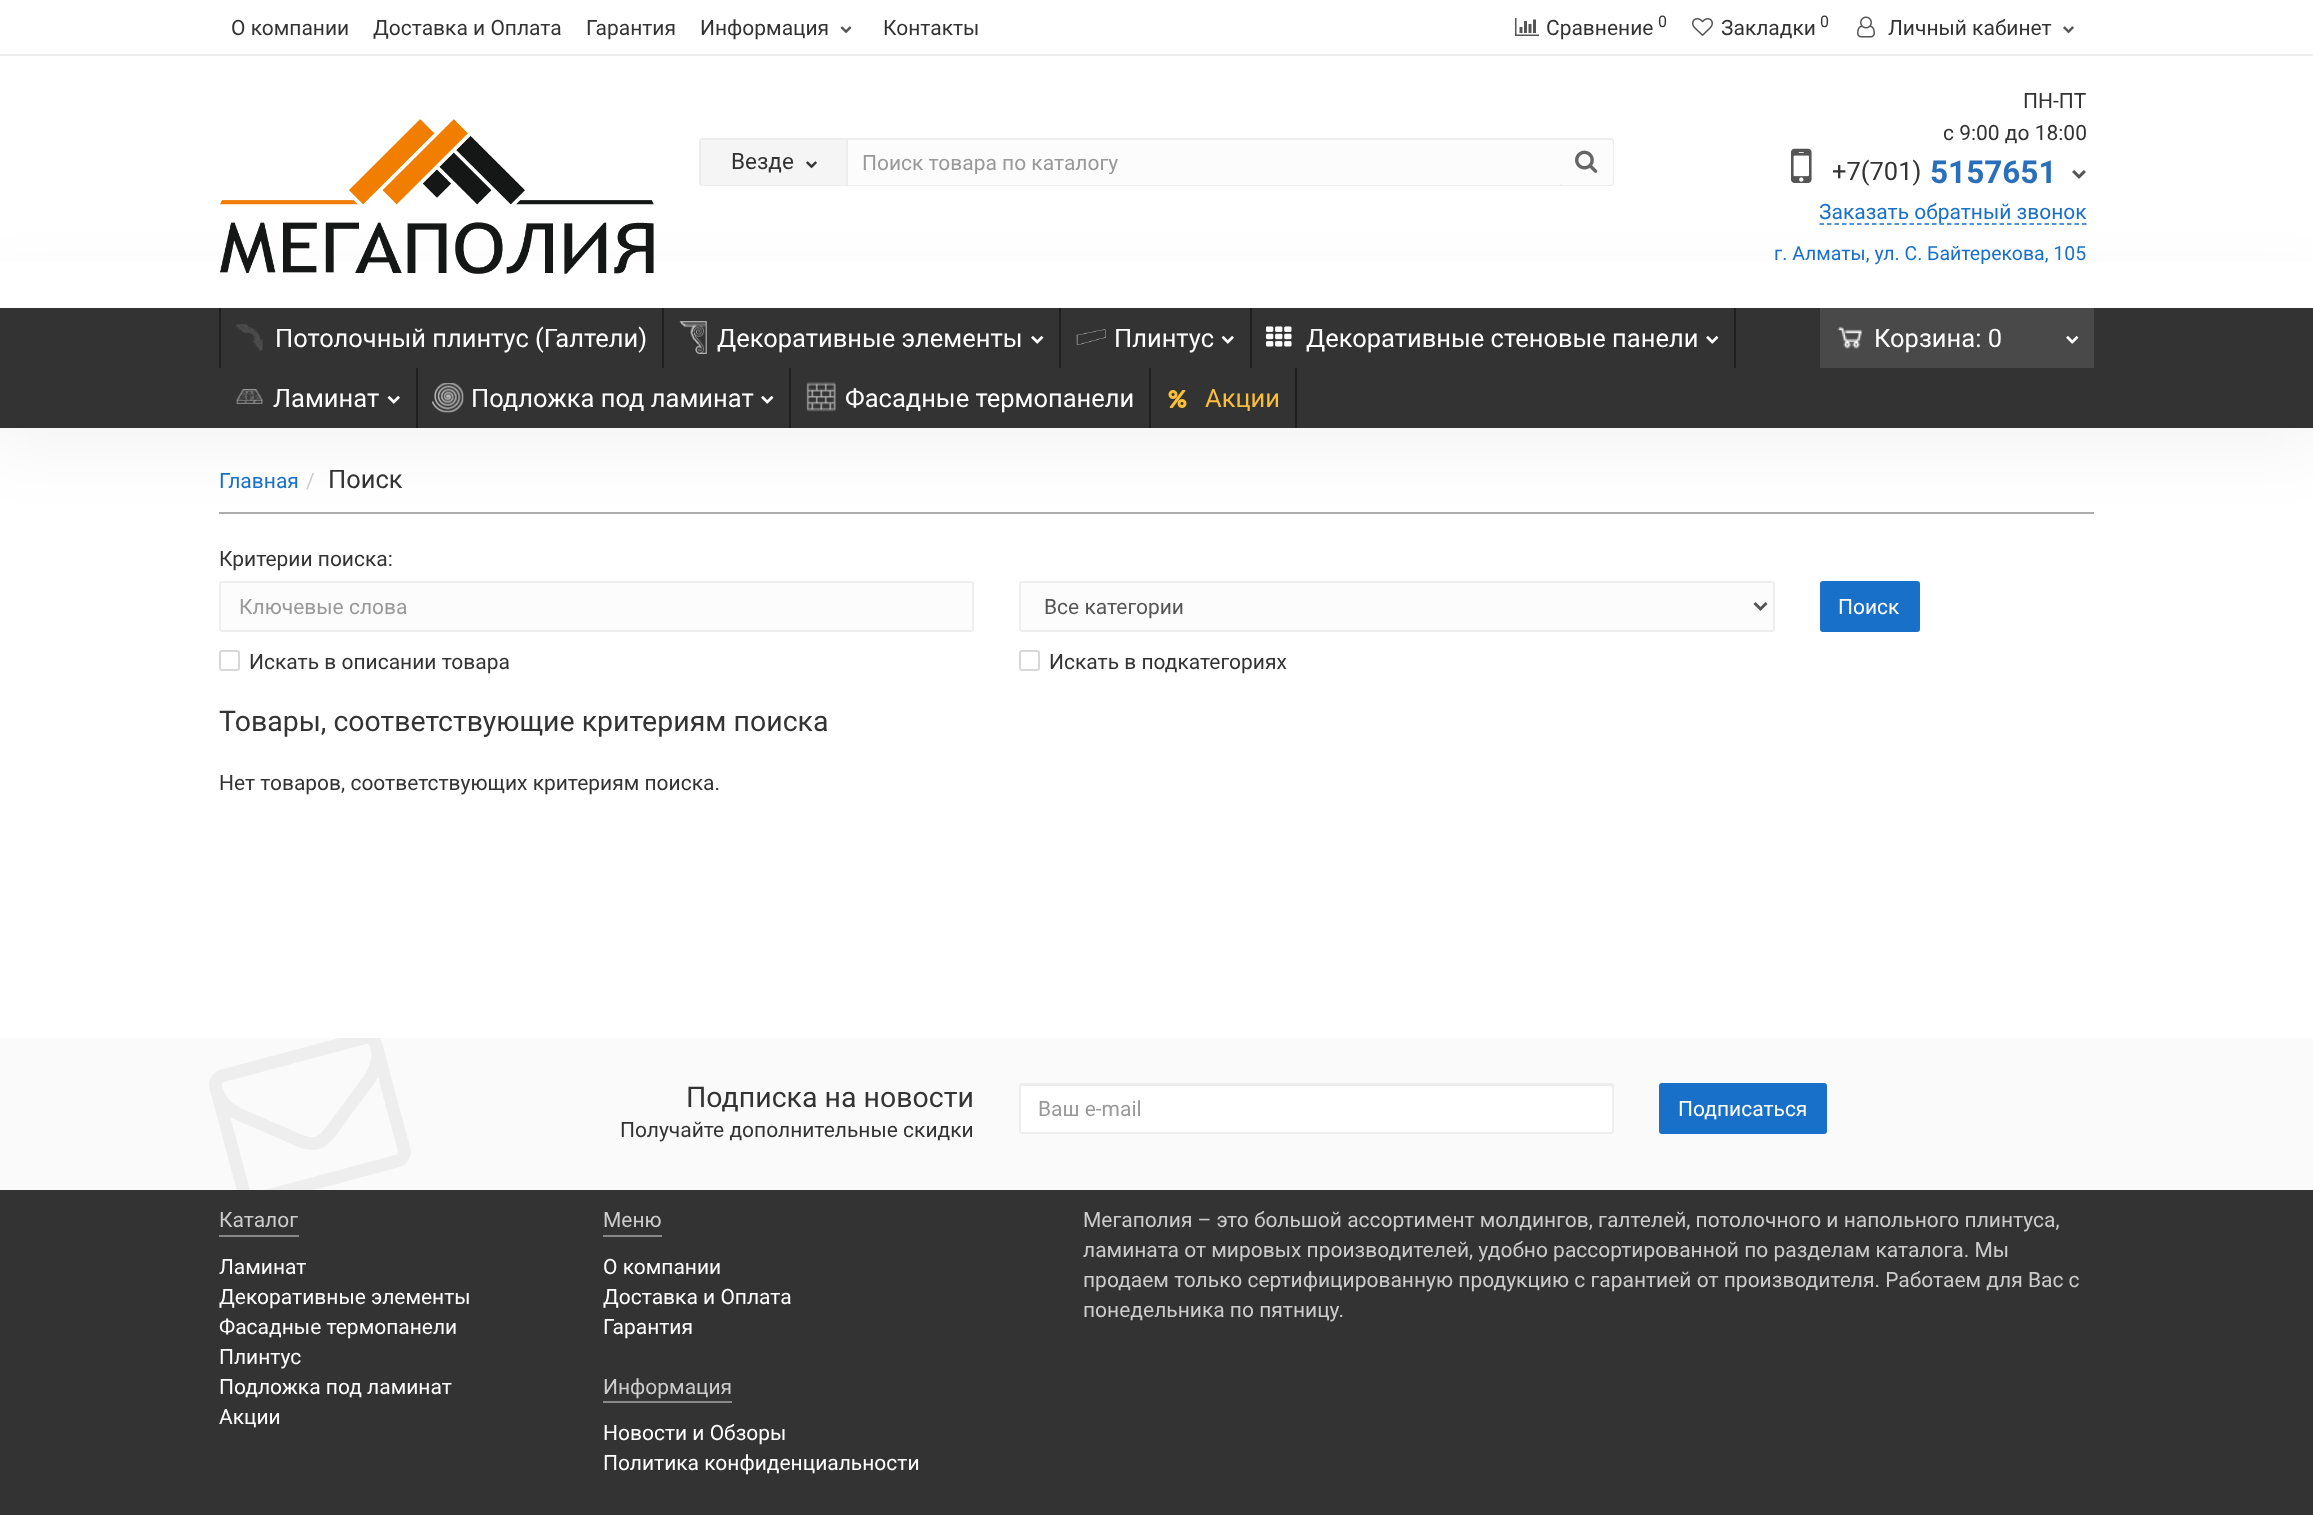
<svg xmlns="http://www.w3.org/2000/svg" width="2313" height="1515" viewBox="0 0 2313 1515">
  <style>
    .t1 { font: 21px Roboto; fill: #333; }
    .t2 { font: 16px Roboto; fill: #333; }
    .t3 { font: 22.5px Roboto; fill: #333; }
    .t4 { font: 21px Roboto; fill: #999; }
    .t5 { font: 25.5px Roboto; fill: #333; }
    .t6 { font: bold 31.5px Roboto; fill: #2a6fba; }
    .t7 { font: 21px Roboto; fill: #1970c9; }
    .t8 { font: 19.5px Roboto; fill: #1970c9; }
    .t9 { font: 25.5px Roboto; fill: #fff; }
    .t10 { font: 25.5px Roboto; fill: #f9bf3b; }
    .t11 { font: 21px Roboto; fill: #ccc; }
    .t12 { font: 21px Roboto; fill: #555; }
    .t13 { font: 21px Roboto; fill: #fff; }
    .t14 { font: 28.5px Roboto; fill: #333; }
  </style>
  <defs>
    <clipPath id="clip1"><rect x="863" y="150" width="682" height="24"/></clipPath>
  </defs>
  <rect width="100%" height="100%" fill="#fff"/>
  <rect x="0" y="54" width="2313" height="2" fill="#ededed"/>
  <text x="231" y="35" class="t1">О компании</text>
  <text x="373" y="35" class="t1">Доставка и Оплата</text>
  <text x="586" y="35" class="t1">Гарантия</text>
  <text x="700" y="35" class="t1">Информация</text>
  <image x="840" y="26" width="12" height="8" href="images/1.png"/>
  <text x="883" y="35" class="t1">Контакты</text>
  <image x="1515" y="18" width="24" height="18" href="images/2.png"/>
  <text x="1546" y="35" class="t1">Сравнение</text>
  <text x="1658" y="27" class="t2">0</text>
  <image x="1692" y="18" width="21" height="18" href="images/3.png"/>
  <text x="1721" y="35" class="t1">Закладки</text>
  <text x="1820" y="27" class="t2">0</text>
  <image x="1857" y="16" width="18" height="22" href="images/4.png"/>
  <text x="1888" y="35" class="t1">Личный кабинет</text>
  <image x="2063" y="26" width="11" height="8" href="images/5.png"/>
  <rect x="219" y="512" width="1875" height="2" fill="#adadad"/>
  <rect x="-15" y="293" width="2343" height="150" fill="#0000000d" filter="blur(37.5px)"/>
  <rect x="0" y="261" width="2313" height="47" fill="#fff"/>
  <image x="220" y="119" width="434" height="155" href="images/6.png"/>
  <rect x="700" y="139" width="913" height="46" rx="2" fill="#fcfcfc" stroke="#ededed" stroke-width="2"/>
  <rect x="701" y="140" width="147" height="45" rx="3" fill="#f5f5f5"/>
  <text x="731" y="169" class="t3">Везде</text>
  <image x="806" y="161" width="11" height="8" href="images/7.png"/>
  <rect x="848" y="184" width="712" height="1" fill="#fcfcfc"/>
  <rect x="846" y="140" width="2" height="45" fill="#ededed"/>
  <g clip-path="url(#clip1)">
    <text x="862" y="170" class="t4">Поиск товара по каталогу</text>
  </g>
  <rect x="1560" y="140" width="53" height="45" rx="3" fill="#fcfcfc"/>
  <image x="1575" y="150" width="23" height="23" href="images/8.png"/>
  <image x="1791" y="148" width="21" height="35" href="images/9.png"/>
  <text x="2023" y="108" class="t1">ПН-ПТ</text>
  <text x="1943" y="140" class="t1">с 9:00 до 18:00</text>
  <text x="1832" y="180" class="t5">+7(701)</text>
  <text x="1930" y="183" class="t6">5157651</text>
  <image x="2072" y="170" width="14" height="9" href="images/10.png"/>
  <path d="M1819.5 224H2086.5" fill="none" stroke="#1970c9" stroke-width="1.5" stroke-dasharray="4.5 3"/>
  <text x="1819" y="219" class="t7">Заказать обратный звонок</text>
  <text x="1774" y="260" class="t8">г. Алматы, ул. С. Байтерекова, 105</text>
  <rect x="0" y="308" width="2313" height="120" fill="#333"/>
  <rect x="662" y="308" width="2" height="60" fill="#1f1f1f"/>
  <rect x="219" y="308" width="2" height="60" fill="#1f1f1f"/>
  <image x="235" y="324" width="28" height="27" href="images/11.png"/>
  <text x="275" y="347" class="t9">Потолочный плинтус (Галтели)</text>
  <rect x="1059" y="308" width="2" height="60" fill="#1f1f1f"/>
  <image x="679" y="321" width="28" height="33" href="images/12.png"/>
  <text x="717" y="347" class="t9">Декоративные элементы</text>
  <image x="1031" y="336" width="13" height="8" href="images/13.png"/>
  <rect x="1250" y="308" width="2" height="60" fill="#1f1f1f"/>
  <image x="1076" y="329" width="30" height="16" href="images/14.png"/>
  <text x="1114" y="347" class="t9">Плинтус</text>
  <image x="1221" y="336" width="13" height="8" href="images/15.png"/>
  <rect x="1734" y="308" width="2" height="60" fill="#1f1f1f"/>
  <image x="1266" y="326" width="26" height="21" href="images/16.png"/>
  <text x="1306" y="347" class="t9">Декоративные стеновые панели</text>
  <image x="1706" y="336" width="13" height="8" href="images/13.png"/>
  <rect x="416" y="368" width="2" height="60" fill="#1f1f1f"/>
  <image x="236" y="389" width="27" height="15" href="images/17.png"/>
  <text x="273" y="407" class="t9">Ламинат</text>
  <image x="387" y="396" width="13" height="8" href="images/15.png"/>
  <rect x="789" y="368" width="2" height="60" fill="#1f1f1f"/>
  <image x="432" y="383" width="32" height="30" href="images/18.png"/>
  <text x="471" y="407" class="t9">Подложка под ламинат</text>
  <image x="761" y="396" width="13" height="8" href="images/13.png"/>
  <rect x="1149" y="368" width="2" height="60" fill="#1f1f1f"/>
  <image x="806" y="382" width="30" height="30" href="images/19.png"/>
  <text x="845" y="407" class="t9">Фасадные термопанели</text>
  <rect x="1295" y="368" width="2" height="60" fill="#1f1f1f"/>
  <image x="1168" y="390" width="19" height="18" href="images/20.png"/>
  <text x="1205" y="407" class="t10">Акции</text>
  <rect x="1820" y="308" width="274" height="60" fill="#494949"/>
  <image x="1837" y="326" width="26" height="23" href="images/21.png"/>
  <text x="1874" y="347" class="t9">Корзина: 0</text>
  <image x="2066" y="336" width="13" height="8" href="images/22.png"/>
  <text x="219" y="488" class="t7">Главная</text>
  <text x="306" y="488" class="t11">/</text>
  <text x="328" y="488" class="t5">Поиск</text>
  <text x="219" y="566" class="t1">Критерии поиска:</text>
  <rect x="220" y="582" width="753" height="49" rx="2" fill="#fcfcfc" stroke="#eee" stroke-width="2"/>
  <text x="239" y="614" class="t4">Ключевые слова</text>
  <rect x="1020" y="582" width="754" height="49" rx="2" fill="#fcfcfc" stroke="#eee" stroke-width="2"/>
  <path d="M1754.5 603L1760.5 609L1766.5 603" fill="none" stroke="#555" stroke-width="3"/>
  <text x="1044" y="614" class="t12">Все категории</text>
  <rect x="1821" y="582" width="98" height="49" rx="2" fill="#1970c9" stroke="#1970c9" stroke-width="2"/>
  <text x="1838" y="614" class="t13">Поиск</text>
  <rect x="220" y="651" width="19" height="19" rx="2" fill="none" stroke="#d8d8d8" stroke-width="2"/>
  <text x="249" y="669" class="t1">Искать в описании товара</text>
  <rect x="1020" y="651" width="19" height="19" rx="2" fill="none" stroke="#d8d8d8" stroke-width="2"/>
  <text x="1049" y="669" class="t1">Искать в подкатегориях</text>
  <text x="219" y="731" class="t14">Товары, соответствующие критериям поиска</text>
  <text x="219" y="790" class="t1">Нет товаров, соответствующих критериям поиска.</text>
  <rect x="0" y="1038" width="2313" height="152" fill="#fafafa"/>
  <image x="209" y="1038" width="202" height="152" href="images/23.png"/>
  <text x="686" y="1107" class="t14">Подписка на новости</text>
  <text x="620" y="1137" class="t1">Получайте дополнительные скидки</text>
  <rect x="1019" y="1083" width="595" height="51" rx="3" fill="#fff"/>
  <path d="M1022 1086H1611C1613 1086 1612 1099 1612 1103V1133C1613 1133 1613 1132 1613 1132V1086C1613 1086 1612 1085 1612 1085H1022C1021 1085 1020 1086 1020 1086V1088C1020 1087 1021 1086 1022 1086Z" fill="#ececec"/>
  <rect x="1020" y="1084" width="593" height="49" rx="2" fill="none" stroke="#eee" stroke-width="2"/>
  <text x="1038" y="1116" class="t4">Ваш e-mail</text>
  <rect x="1660" y="1084" width="166" height="49" rx="2" fill="#1970c9" stroke="#1970c9" stroke-width="2"/>
  <text x="1678" y="1116" class="t13">Подписаться</text>
  <rect x="0" y="1190" width="2313" height="325" fill="#333"/>
  <rect x="219" y="1235" width="80" height="2" fill="#888"/>
  <text x="219" y="1227" class="t11">Каталог</text>
  <text x="219" y="1274" class="t13">Ламинат</text>
  <text x="219" y="1304" class="t13">Декоративные элементы</text>
  <text x="219" y="1334" class="t13">Фасадные термопанели</text>
  <text x="219" y="1364" class="t13">Плинтус</text>
  <text x="219" y="1394" class="t13">Подложка под ламинат</text>
  <text x="219" y="1424" class="t13">Акции</text>
  <rect x="603" y="1235" width="59" height="2" fill="#888"/>
  <text x="603" y="1227" class="t11">Меню</text>
  <text x="603" y="1274" class="t13">О компании</text>
  <text x="603" y="1304" class="t13">Доставка и Оплата</text>
  <text x="603" y="1334" class="t13">Гарантия</text>
  <rect x="603" y="1401" width="129" height="2" fill="#888"/>
  <text x="603" y="1394" class="t11">Информация</text>
  <text x="603" y="1440" class="t13">Новости и Обзоры</text>
  <text x="603" y="1470" class="t13">Политика конфиденциальности</text>
  <text x="1083" y="1227" class="t11">Мегаполия – это большой ассортимент молдингов, галтелей, потолочного и напольного плинтуса,</text>
  <text x="1083" y="1257" class="t11">ламината от мировых производителей, удобно рассортированной по разделам каталога. Мы</text>
  <text x="1083" y="1287" class="t11">продаем только сертифицированную продукцию с гарантией от производителя. Работаем для Вас с</text>
  <text x="1083" y="1317" class="t11">понедельника по пятницу.</text>
</svg>
